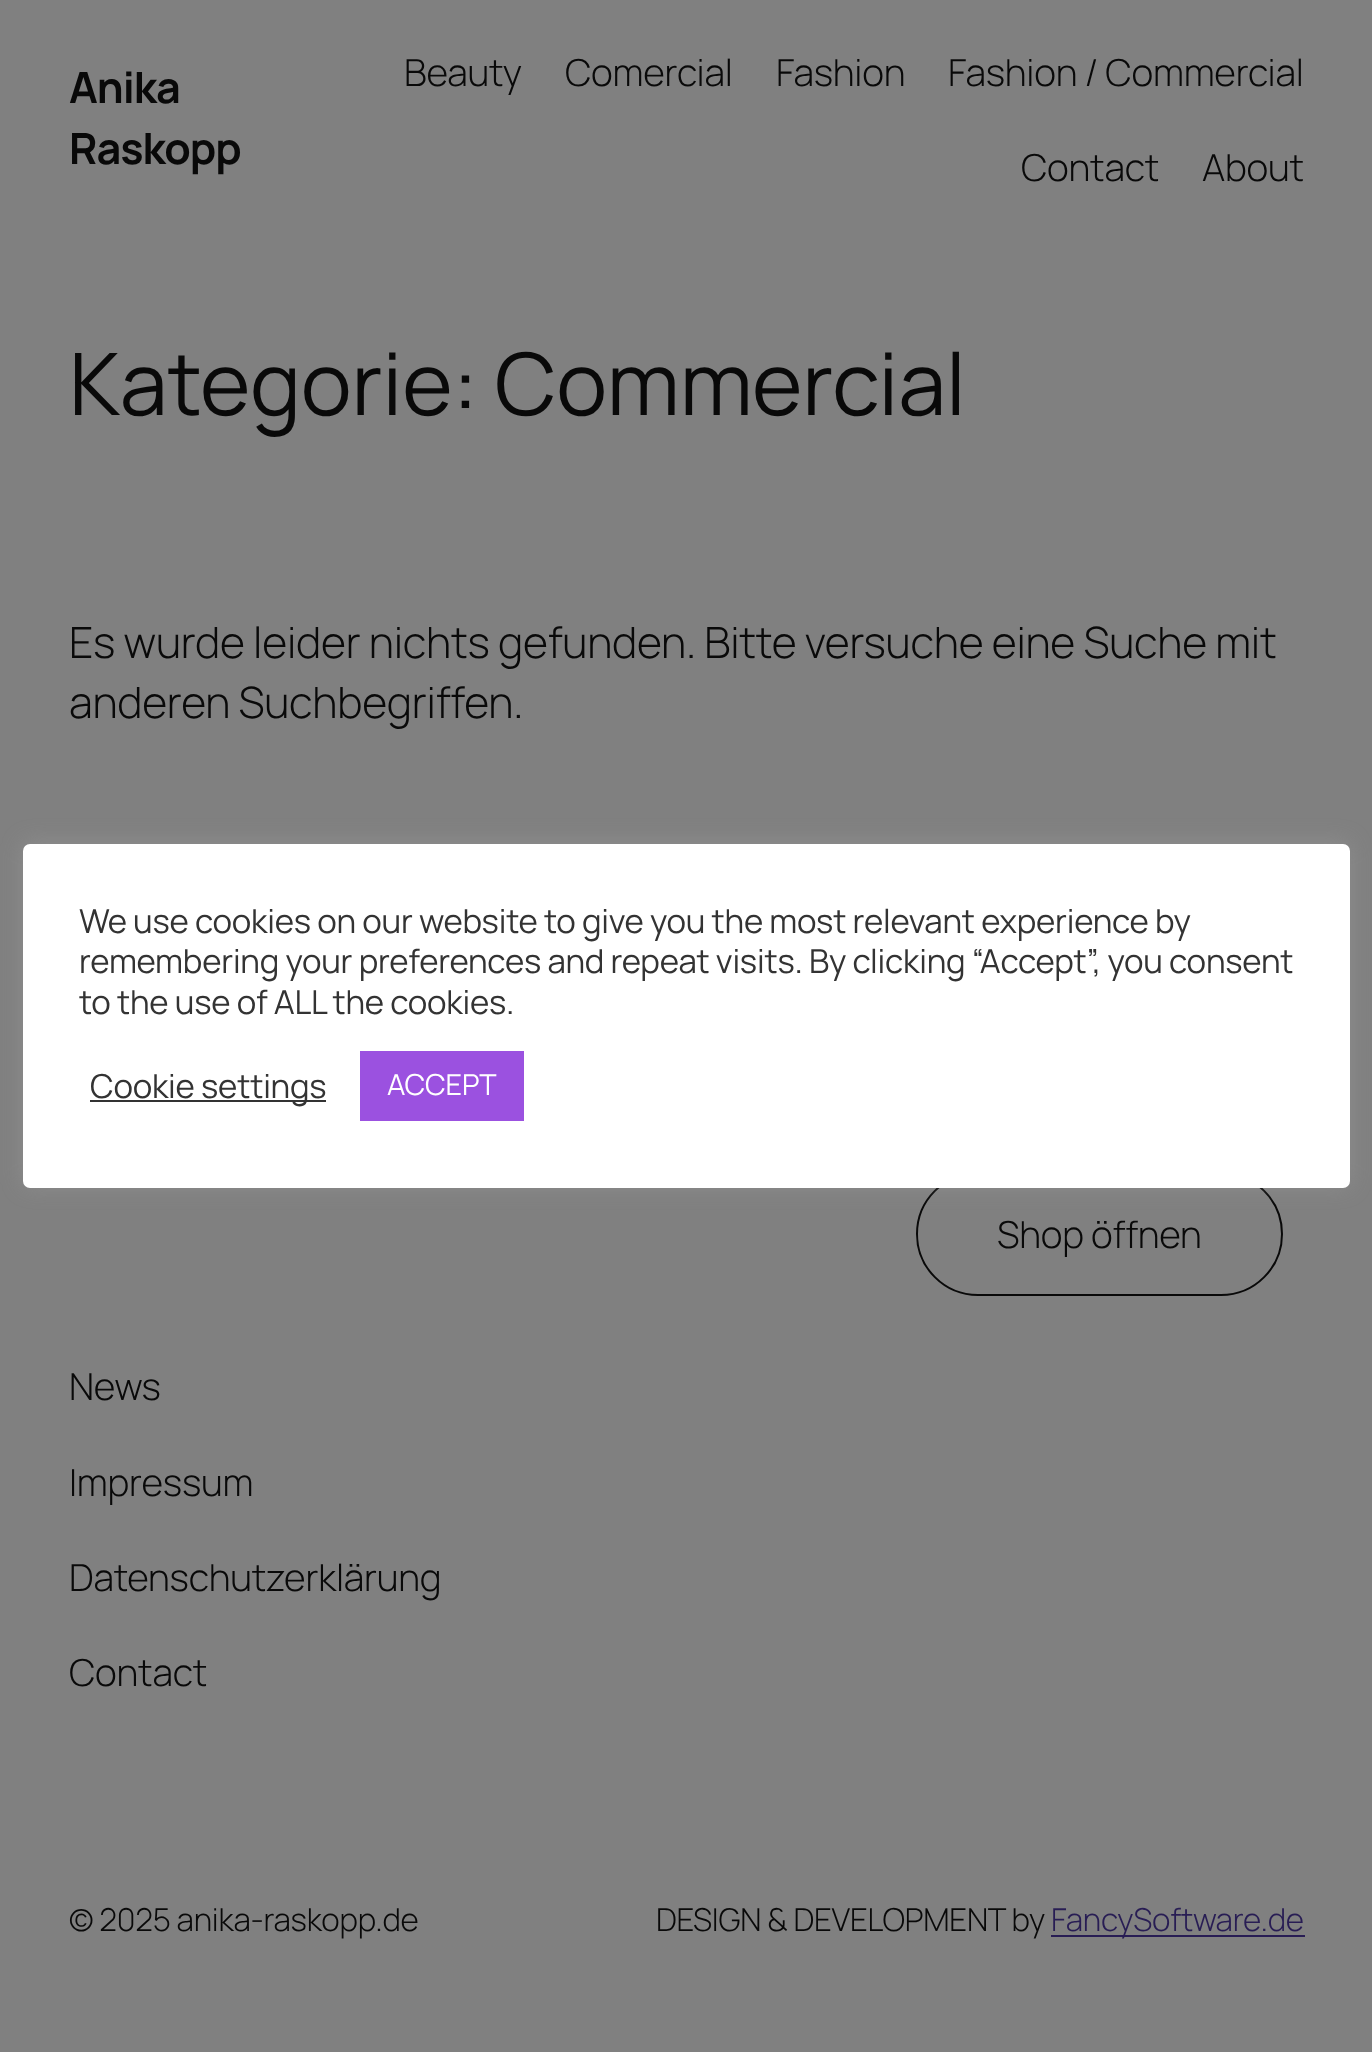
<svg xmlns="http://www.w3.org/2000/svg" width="1372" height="2052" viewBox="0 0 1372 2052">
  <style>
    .t1 { font: bold 43.05px Manrope; letter-spacing: -1px; fill: #090909; }
    .t2 { font: 300 37.25px Manrope; letter-spacing: -0.23px; fill: #090909; }
    .t3 { font: 86.1px Manrope; letter-spacing: -0.23px; fill: #090909; }
    .t4 { font: 300 43.05px Manrope; letter-spacing: -0.23px; fill: #090909; }
    .t5 { font: 300 31.5px Manrope; letter-spacing: -0.23px; fill: #090909; }
    .t6 { font: 300 31.5px Manrope; letter-spacing: -0.23px; fill: #281d54; }
    .t7 { font: 33px Manrope; letter-spacing: -0.23px; fill: #333; }
    .t8 { font: 29px Manrope; letter-spacing: -0.23px; fill: #fff; }
  </style>
  <rect width="100%" height="100%" fill="#808080"/>
  <text x="69" y="103" class="t1">Anika</text>
  <text x="69" y="164" class="t1">Raskopp</text>
  <text x="404" y="86" class="t2">Beauty</text>
  <text x="565" y="86" class="t2">Comercial</text>
  <text x="776" y="86" class="t2">Fashion</text>
  <text x="948" y="86" class="t2">Fashion / Commercial</text>
  <text x="1021" y="181" class="t2">Contact</text>
  <text x="1202" y="181" class="t2">About</text>
  <text x="69" y="415" class="t3">Kategorie: Commercial</text>
  <text x="69" y="658" class="t4">Es wurde leider nichts gefunden. Bitte versuche eine Suche mit</text>
  <text x="69" y="718" class="t4">anderen Suchbegriffen.</text>
  <rect x="917" y="1173" width="365" height="122" rx="61" fill="none" stroke="#090909" stroke-width="2"/>
  <text x="997" y="1248" class="t2">Shop öffnen</text>
  <text x="69" y="1400" class="t2">News</text>
  <text x="69" y="1496" class="t2">Impressum</text>
  <text x="69" y="1591" class="t2">Datenschutzerklärung</text>
  <text x="69" y="1686" class="t2">Contact</text>
  <text x="69" y="1931" class="t5">© 2025 anika-raskopp.de</text>
  <text x="656" y="1931" class="t5">DESIGN &amp; DEVELOPMENT by</text>
  <rect x="1051" y="1935" width="254" height="2" fill="#281d54"/>
  <text x="1051" y="1931" class="t6">FancySoftware.de</text>
  <rect x="23" y="842" width="1327" height="344" rx="7" fill="#acabab4d" filter="blur(11px)"/>
  <rect x="23" y="844" width="1327" height="344" rx="7" fill="#fff"/>
  <text x="79" y="933" class="t7">We use cookies on our website to give you the most relevant experience by</text>
  <text x="79" y="973" class="t7">remembering your preferences and repeat visits. By clicking “Accept”, you consent</text>
  <text x="79" y="1014" class="t7">to the use of ALL the cookies.</text>
  <rect x="90" y="1100" width="236" height="2" fill="#333"/>
  <text x="90" y="1098" class="t7">Cookie settings</text>
  <rect x="360" y="1051" width="164" height="70" fill="#9b51e0"/>
  <text x="387" y="1095" class="t8">ACCEPT</text>
</svg>
